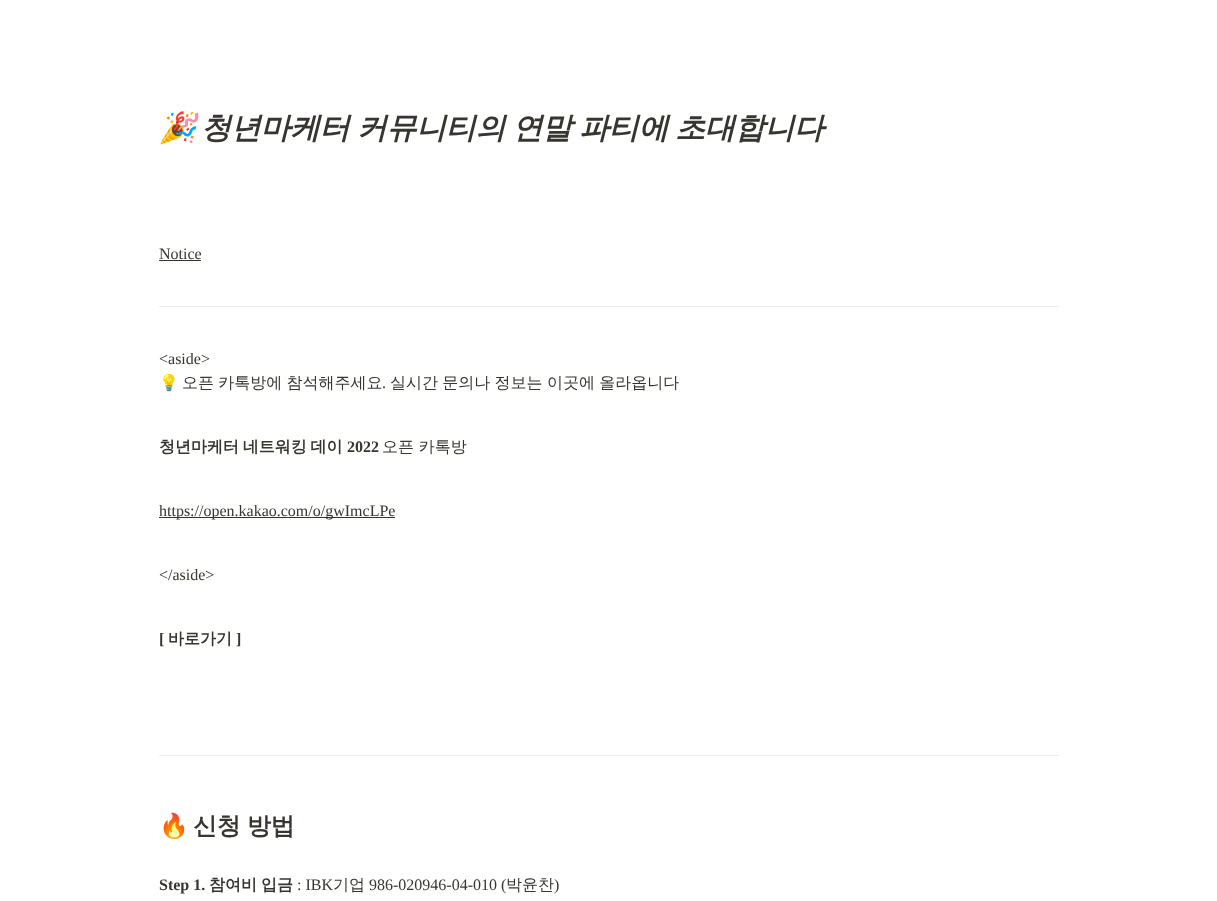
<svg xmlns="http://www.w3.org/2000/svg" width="1217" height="901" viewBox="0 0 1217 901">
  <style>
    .t1 { font: italic bold 30px Noto Color Emoji; letter-spacing: -0.3px; fill: #37352f; }
    .t2 { font: italic bold 30px WenQuanYi Zen Hei; letter-spacing: -0.3px; fill: #37352f; }
    .t3 { font: 16px Liberation Serif; fill: #37352f; }
    .t4 { font: 16px Noto Color Emoji; fill: #37352f; }
    .t5 { font: 500 16px WenQuanYi Zen Hei; fill: #37352f; }
    .t6 { font: bold 16px WenQuanYi Zen Hei; fill: #37352f; }
    .t7 { font: bold 16px Liberation Serif; fill: #37352f; }
    .t8 { font: bold 24px Noto Color Emoji; letter-spacing: -0.25px; fill: #37352f; }
    .t9 { font: bold 24px WenQuanYi Zen Hei; letter-spacing: -0.25px; fill: #37352f; }
  </style>
  <rect width="100%" height="100%" fill="#fff"/>
  <text x="159" y="138" class="t1">🎉</text>
  <text x="201" y="138" word-spacing="-1.5" class="t2">청년마케터 커뮤니티의 연말 파티에 초대합니다</text>
  <text x="159" y="259" class="t3">Notice</text>
  <rect x="159" y="260" width="42" height="1" fill="#37352f"/>
  <rect x="159" y="306" width="900" height="1" fill="#ededec"/>
  <text x="159" y="364" class="t3">&lt;aside&gt;</text>
  <text x="159" y="388" class="t4">💡</text>
  <text x="182" y="388" word-spacing="-0.5" class="t5">오픈 카톡방에 참석해주세요</text>
  <text x="382" y="388" class="t3">.</text>
  <text x="390" y="388" word-spacing="-0.5" class="t5">실시간 문의나 정보는 이곳에 올라옵니다</text>
  <text x="159" y="452" word-spacing="-1" class="t6">청년마케터 네트워킹 데이</text>
  <text x="347" y="452" class="t7">2022</text>
  <text x="382" y="452" class="t5">오픈 카톡방</text>
  <rect x="159" y="517" width="236" height="1" fill="#37352f"/>
  <text x="159" y="516" class="t3">https://open.kakao.com/o/gwImcLPe</text>
  <text x="159" y="580" class="t3">&lt;/aside&gt;</text>
  <text x="159" y="644" class="t7">[</text>
  <text x="168" y="644" class="t6">바로가기</text>
  <text x="236" y="644" class="t7">]</text>
  <rect x="159" y="755" width="900" height="1" fill="#ededec"/>
  <text x="159" y="834" class="t8">🔥</text>
  <text x="193" y="834" word-spacing="-0.5" class="t9">신청 방법</text>
  <text x="159" y="890" class="t7">Step 1.</text>
  <text x="209" y="890" class="t6">참여비</text>
  <text x="261" y="890" class="t6">입금</text>
  <text x="297" y="890" class="t3">: IBK</text>
  <text x="333" y="890" class="t5">기업</text>
  <text x="369" y="890" class="t3">986-020946-04-010 (</text>
  <text x="506" y="890" class="t5">박윤찬</text>
  <text x="554" y="890" class="t3">)</text>
</svg>
